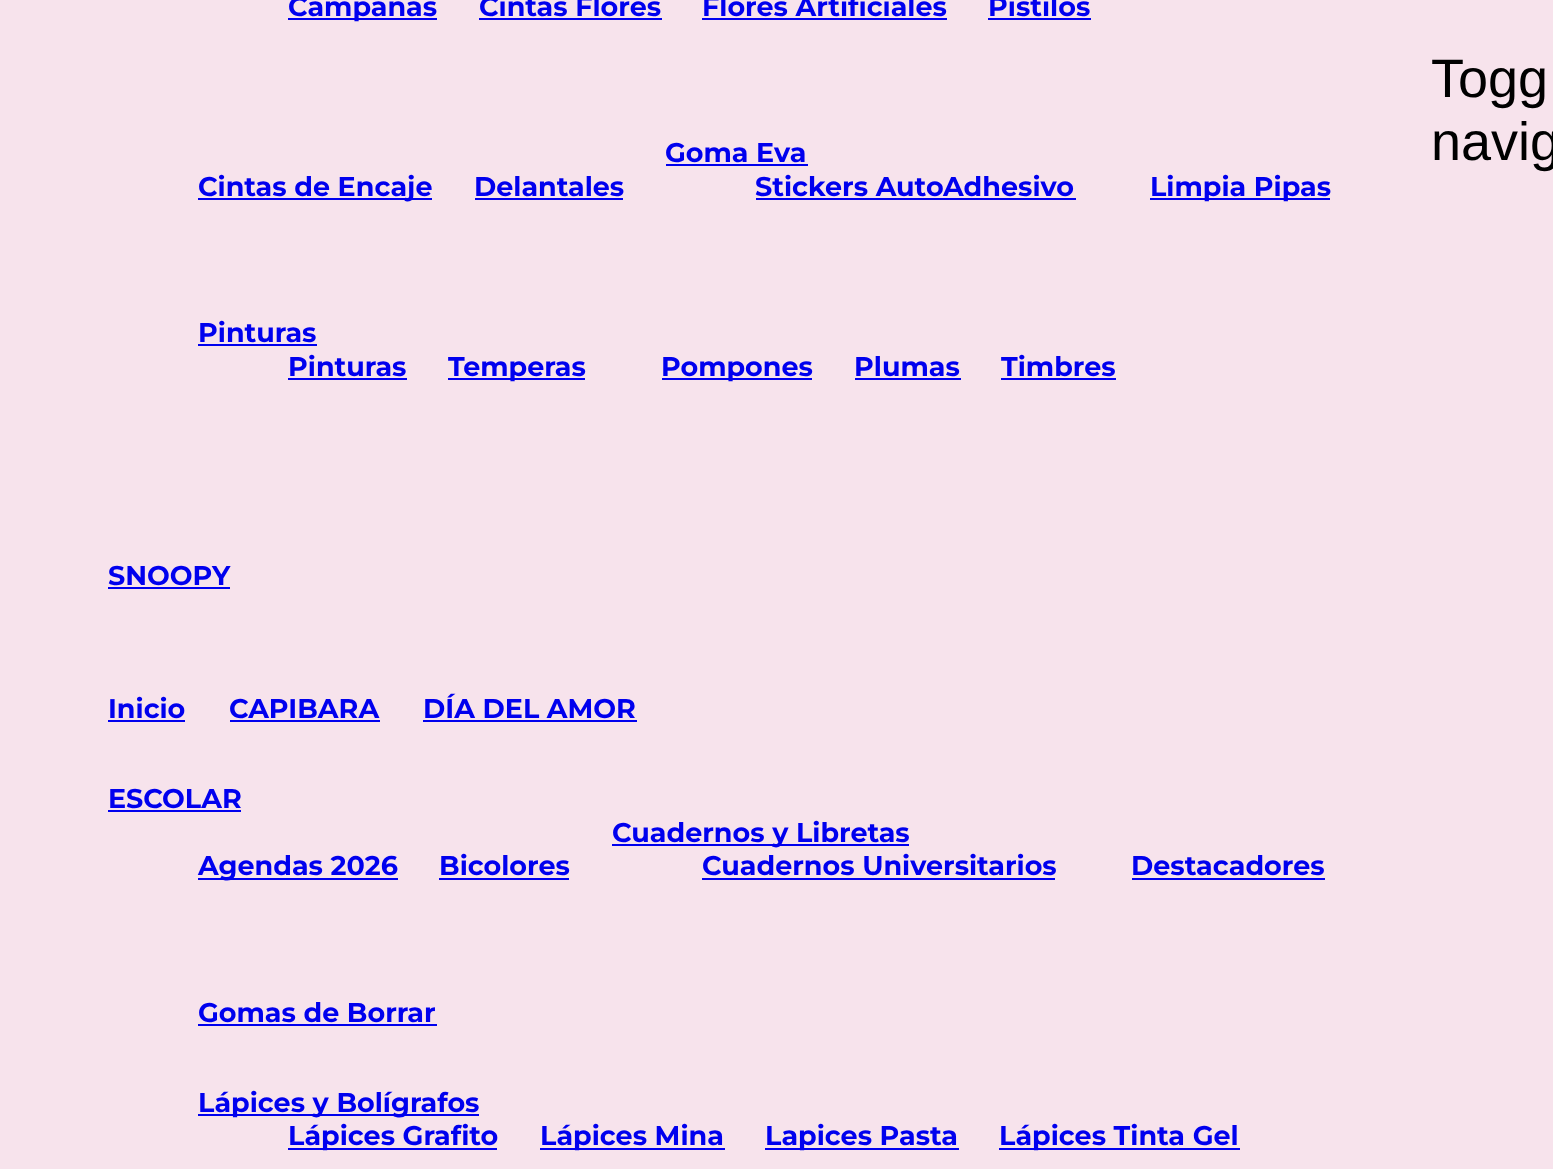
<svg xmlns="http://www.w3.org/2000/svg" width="1553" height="1169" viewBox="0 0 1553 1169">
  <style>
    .t1 { font: bold 27px Montserrat; fill: #00e; }
    .t2 { font: 54px Liberation Sans; fill: #000; }
  </style>
  <rect width="100%" height="100%" fill="#f7e3ec"/>
  <rect x="288" y="18" width="149" height="2" fill="#00e"/>
  <text x="288" y="16" class="t1">Campanas</text>
  <text x="479" y="16" class="t1">Cintas Flores</text>
  <rect x="479" y="18" width="183" height="2" fill="#00e"/>
  <text x="702" y="16" class="t1">Flores Artificiales</text>
  <rect x="702" y="18" width="245" height="2" fill="#00e"/>
  <text x="988" y="16" class="t1">Pistilos</text>
  <rect x="988" y="18" width="103" height="2" fill="#00e"/>
  <rect x="198" y="198" width="234" height="2" fill="#00e"/>
  <text x="198" y="196" class="t1">Cintas de Encaje</text>
  <text x="474" y="196" class="t1">Delantales</text>
  <rect x="475" y="198" width="148" height="2" fill="#00e"/>
  <text x="665" y="162" class="t1">Goma Eva</text>
  <rect x="666" y="164" width="142" height="2" fill="#00e"/>
  <text x="755" y="196" class="t1">Stickers AutoAdhesivo</text>
  <rect x="756" y="198" width="320" height="2" fill="#00e"/>
  <rect x="1150" y="198" width="180" height="2" fill="#00e"/>
  <text x="1150" y="196" class="t1">Limpia Pipas</text>
  <text x="198" y="342" class="t1">Pinturas</text>
  <rect x="198" y="344" width="119" height="2" fill="#00e"/>
  <text x="288" y="376" class="t1">Pinturas</text>
  <rect x="288" y="378" width="119" height="2" fill="#00e"/>
  <rect x="448" y="378" width="137" height="2" fill="#00e"/>
  <text x="448" y="376" class="t1">Temperas</text>
  <rect x="662" y="378" width="150" height="2" fill="#00e"/>
  <text x="661" y="376" class="t1">Pompones</text>
  <text x="854" y="376" class="t1">Plumas</text>
  <rect x="855" y="378" width="106" height="2" fill="#00e"/>
  <text x="1001" y="376" class="t1">Timbres</text>
  <rect x="1001" y="378" width="115" height="2" fill="#00e"/>
  <text x="108" y="585" class="t1">SNOOPY</text>
  <rect x="108" y="587" width="122" height="2" fill="#00e"/>
  <text x="1431" y="97" class="t2">Togg</text>
  <text x="1431" y="160" class="t2">navig</text>
  <text x="108" y="718" class="t1">Inicio</text>
  <rect x="108" y="720" width="77" height="2" fill="#00e"/>
  <text x="229" y="718" class="t1">CAPIBARA</text>
  <rect x="230" y="720" width="150" height="2" fill="#00e"/>
  <text x="423" y="718" class="t1">DÍA DEL AMOR</text>
  <rect x="423" y="720" width="214" height="2" fill="#00e"/>
  <text x="108" y="808" class="t1">ESCOLAR</text>
  <rect x="108" y="810" width="133" height="2" fill="#00e"/>
  <rect x="198" y="878" width="200" height="2" fill="#00e"/>
  <text x="198" y="875" class="t1">Agendas 2026</text>
  <text x="439" y="875" class="t1">Bicolores</text>
  <rect x="439" y="878" width="130" height="2" fill="#00e"/>
  <rect x="612" y="844" width="297" height="2" fill="#00e"/>
  <text x="612" y="842" class="t1">Cuadernos y Libretas</text>
  <text x="702" y="875" class="t1">Cuadernos Universitarios</text>
  <rect x="702" y="878" width="353" height="2" fill="#00e"/>
  <text x="1131" y="875" class="t1">Destacadores</text>
  <rect x="1132" y="878" width="193" height="2" fill="#00e"/>
  <text x="198" y="1022" class="t1">Gomas de Borrar</text>
  <rect x="198" y="1024" width="239" height="2" fill="#00e"/>
  <rect x="198" y="1114" width="281" height="2" fill="#00e"/>
  <text x="198" y="1112" class="t1">Lápices y Bolígrafos</text>
  <rect x="288" y="1148" width="209" height="2" fill="#00e"/>
  <text x="288" y="1145" class="t1">Lápices Grafito</text>
  <rect x="540" y="1148" width="185" height="2" fill="#00e"/>
  <text x="540" y="1145" class="t1">Lápices Mina</text>
  <rect x="765" y="1148" width="194" height="2" fill="#00e"/>
  <text x="765" y="1145" class="t1">Lapices Pasta</text>
  <rect x="999" y="1148" width="241" height="2" fill="#00e"/>
  <text x="999" y="1145" class="t1">Lápices Tinta Gel</text>
</svg>
